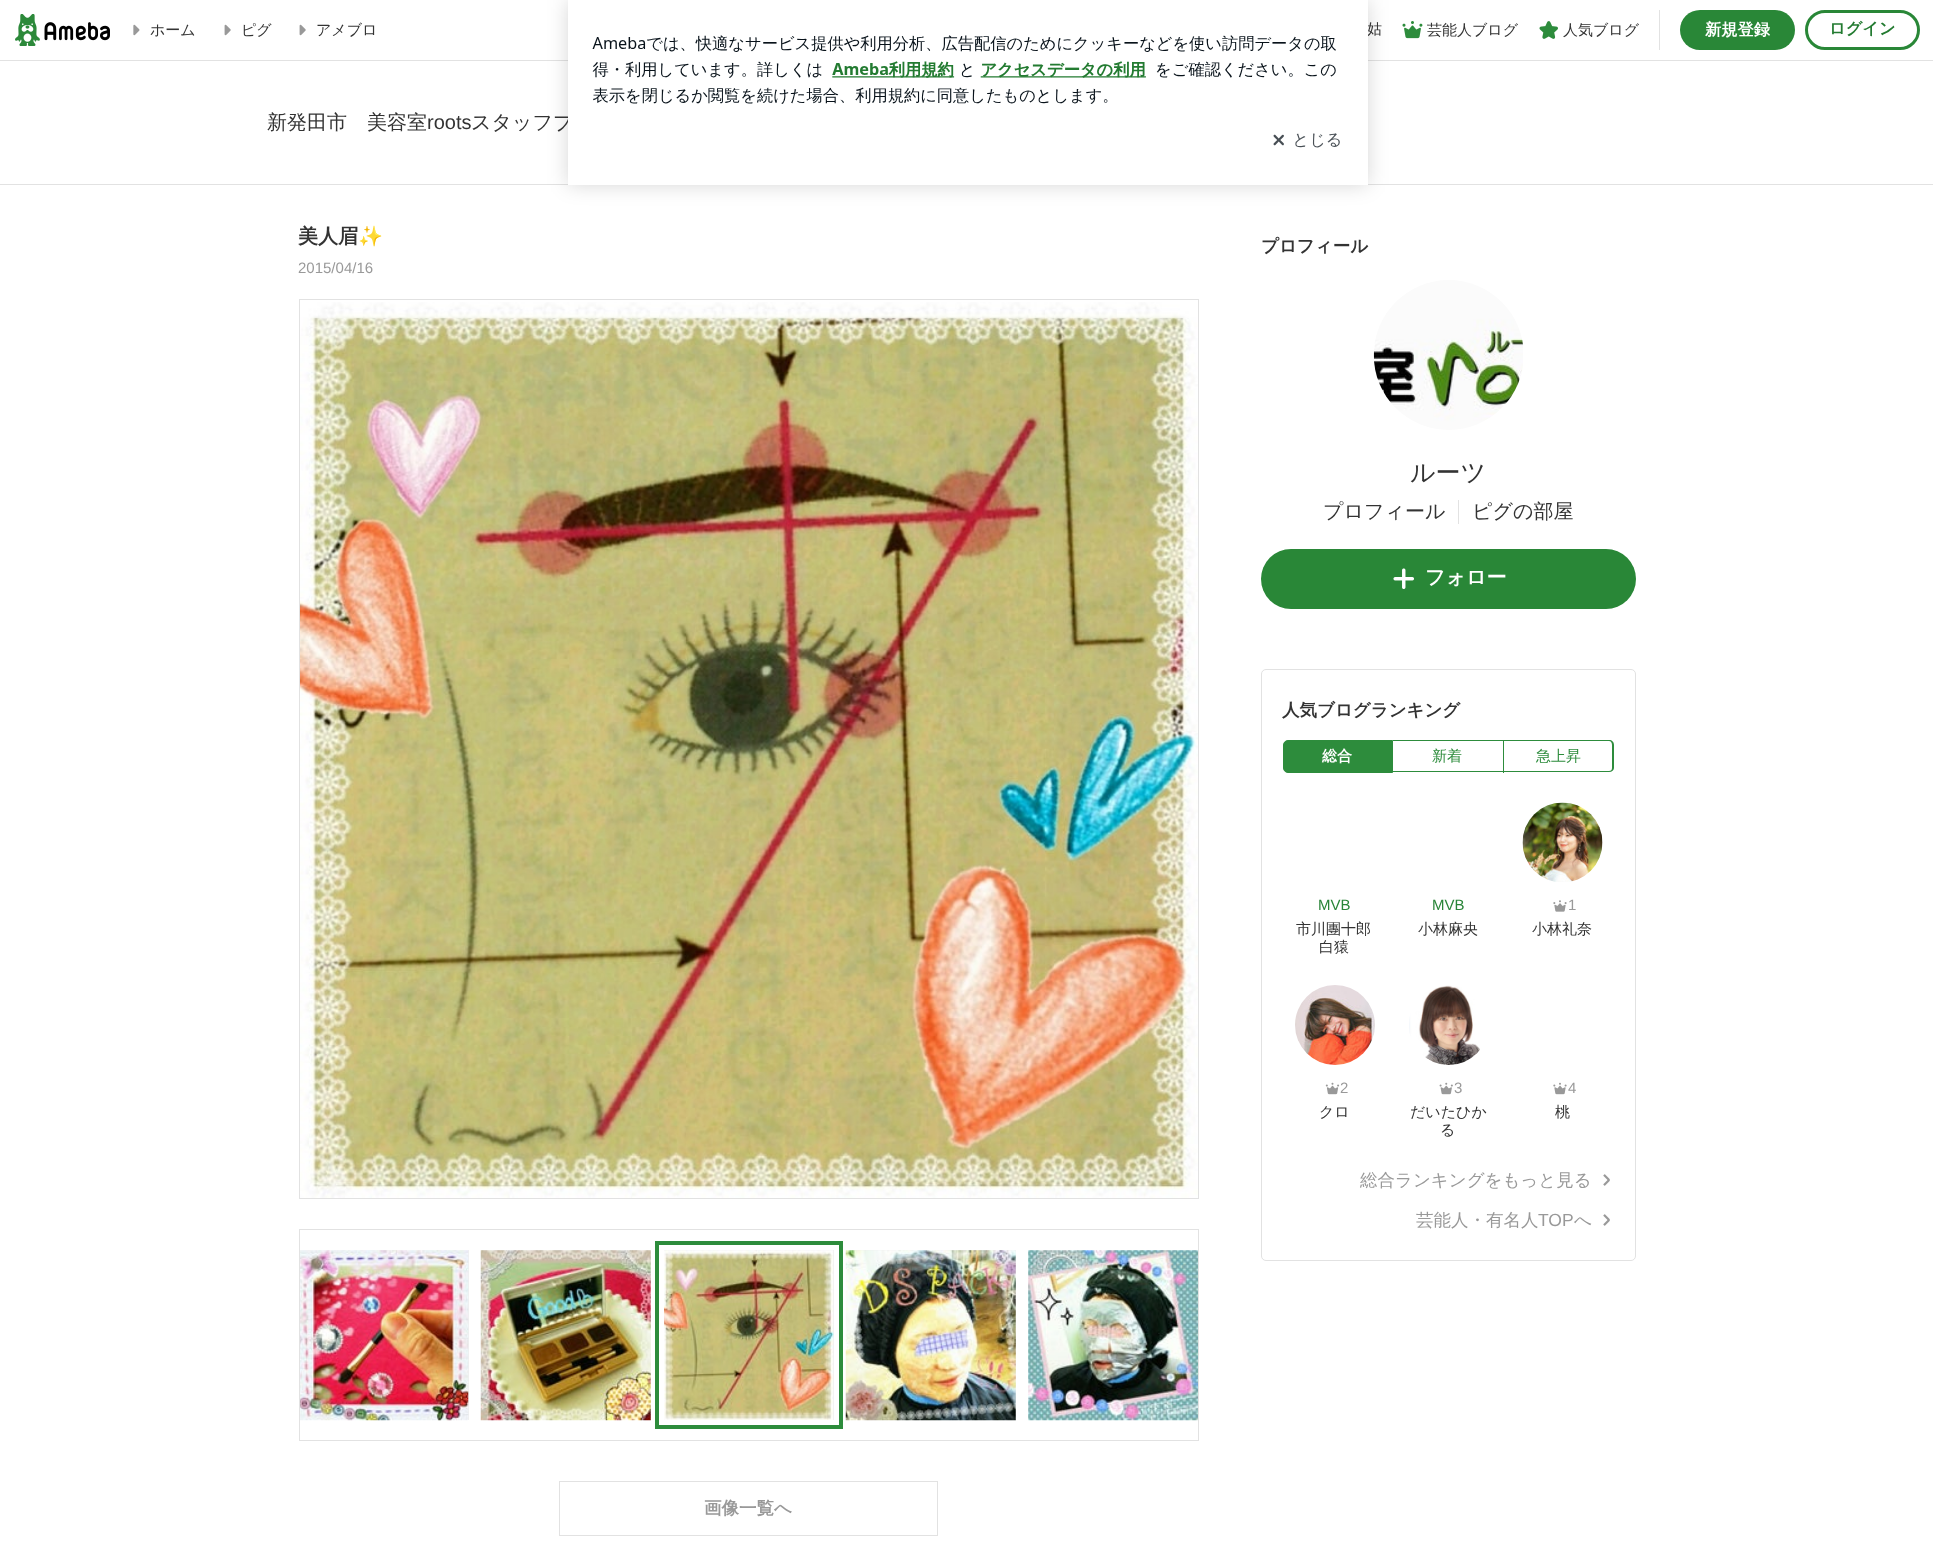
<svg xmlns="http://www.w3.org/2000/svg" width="1933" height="1550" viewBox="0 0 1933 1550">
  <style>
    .t1 { font: 500 15px WenQuanYi Zen Hei; fill: #333; }
    .t2 { font: 500 20px WenQuanYi Zen Hei; fill: #333; }
    .t3 { font: bold 16.25px WenQuanYi Zen Hei; fill: #fff; }
    .t4 { font: bold 16.25px WenQuanYi Zen Hei; fill: #237b31; }
    .t5 { font: 20px Liberation Sans; fill: #333; }
    .t6 { font: bold 20px WenQuanYi Zen Hei; fill: #333; }
    .t7 { font: bold 20px Noto Color Emoji; fill: #333; }
    .t8 { font: 15px Liberation Sans; fill: #999; }
    .t9 { font: bold 17.5px WenQuanYi Zen Hei; fill: #999; }
    .t10 { font: bold 17.5px WenQuanYi Zen Hei; fill: #333; }
    .t11 { font: 500 25px WenQuanYi Zen Hei; fill: #333; }
    .t12 { font: bold 20px WenQuanYi Zen Hei; fill: #fff; }
    .t13 { font: bold 15px WenQuanYi Zen Hei; fill: #fff; }
    .t14 { font: 500 15px WenQuanYi Zen Hei; fill: #2d8c3c; }
    .t15 { font: 15px Liberation Sans; fill: #298538; }
    .t16 { font: 500 17.5px WenQuanYi Zen Hei; fill: #999; }
    .t17 { font: 17.5px Liberation Sans; fill: #999; }
  </style>
  <rect width="100%" height="100%" fill="#fff"/>
  <rect x="0" y="60" width="1933" height="1" fill="#e2e2e2"/>
  <rect x="0" y="184" width="1933" height="1" fill="#e2e2e2"/>
  <rect x="568" y="0" width="800" height="185" fill="#00000029" filter="blur(10px)"/>
  <text x="1367" y="34" class="t1">姑</text>
  <text x="471" y="129" class="t2">スタッフブ</text>
  <image x="568" y="0" width="800" height="185" href="images/1.png"/>
  <image x="15" y="14" width="95" height="32" href="images/2.png"/>
  <image x="133" y="24" width="7" height="12" href="images/3.png"/>
  <text x="150" y="35" class="t1">ホーム</text>
  <image x="224" y="24" width="7" height="12" href="images/4.png"/>
  <text x="241" y="35" class="t1">ピグ</text>
  <image x="299" y="24" width="7" height="12" href="images/4.png"/>
  <text x="316" y="35" class="t1">アメブロ</text>
  <image x="1402" y="21" width="21" height="18" href="images/5.png"/>
  <text x="1427" y="35" class="t1">芸能人ブログ</text>
  <image x="1539" y="21" width="19" height="18" href="images/6.png"/>
  <text x="1563" y="35" class="t1">人気ブログ</text>
  <rect x="1659" y="10" width="1" height="40" fill="#e2e2e2"/>
  <rect x="1680" y="10" width="115" height="40" rx="20" fill="#298737"/>
  <text x="1705" y="35" class="t3">新規登録</text>
  <rect x="1806.5" y="11.5" width="112" height="37" rx="18.5" fill="none" stroke="#298737" stroke-width="3"/>
  <text x="1829" y="34" class="t4">ログイン</text>
  <text x="267" y="129" class="t2">新発田市　美容室</text>
  <text x="427" y="129" class="t5">roots</text>
  <text x="298" y="243" class="t6">美人眉</text>
  <text x="358" y="243" class="t7">✨</text>
  <text x="298" y="273" class="t8">2015/04/16</text>
  <rect x="299.5" y="299.5" width="899" height="899" fill="none" stroke="#e2e2e2"/>
  <image x="300" y="302" width="898" height="896" href="images/7.png"/>
  <rect x="299.5" y="1229.5" width="899" height="211" fill="none" stroke="#e2e2e2"/>
  <rect x="300" y="1250" width="169" height="170" fill="#efefef"/>
  <image x="300" y="1250" width="169" height="171" href="images/8.png"/>
  <rect x="481" y="1250" width="170" height="170" fill="#efefef"/>
  <image x="480" y="1250" width="171" height="171" href="images/9.png"/>
  <rect x="664" y="1250" width="170" height="170" fill="#efefef"/>
  <image x="664" y="1250" width="170" height="170" href="images/10.png"/>
  <rect x="659.5" y="1245.5" width="179" height="179" fill="none" stroke="#2d8c3c" stroke-width="9"/>
  <rect x="661.5" y="1247.5" width="175" height="175" fill="none" stroke="#fff" stroke-width="5"/>
  <rect x="846" y="1250" width="170" height="170" fill="#efefef"/>
  <image x="845" y="1250" width="171" height="171" href="images/11.png"/>
  <image x="1028" y="1250" width="170" height="171" href="images/12.png"/>
  <rect x="559.5" y="1481.5" width="378" height="54" fill="none" stroke="#e2e2e2"/>
  <text x="704" y="1514" class="t9">画像一覧へ</text>
  <text x="1261" y="252" class="t10">プロフィール</text>
  <image x="1373" y="280" width="150" height="150" href="images/13.png"/>
  <text x="1410" y="481" class="t11">ルーツ</text>
  <rect x="1458" y="500" width="1" height="24" fill="#e2e2e2"/>
  <text x="1323" y="518" class="t2">プロフィール</text>
  <text x="1472" y="518" class="t2">ピグの部屋</text>
  <rect x="1261" y="549" width="375" height="60" rx="30" fill="#298737"/>
  <image x="1393" y="568" width="21" height="21" href="images/14.png"/>
  <text x="1425" y="584" class="t12">フォロー</text>
  <rect x="1261.5" y="669.5" width="374" height="591" rx="4.5" fill="none" stroke="#e2e2e2"/>
  <text x="1282" y="716" class="t10">人気ブログランキング</text>
  <path d="M1288 740.5H1392.5V772.5H1288C1285.5 772.5 1283.5 770.5 1283.5 768V745C1283.5 742.5 1285.5 740.5 1288 740.5Z" fill="#2d8c3c" stroke="#2d8c3c"/>
  <text x="1322" y="761" class="t13">総合</text>
  <rect x="1393" y="740" width="111" height="1" fill="#2d8c3c"/>
  <rect x="1503" y="740" width="1" height="33" fill="#2d8c3c"/>
  <rect x="1393" y="771" width="111" height="1" fill="#2d8c3c"/>
  <text x="1432" y="761" class="t14">新着</text>
  <path d="M1504 740H1609C1612 740 1614 742 1614 745V768C1614 770 1612 772 1609 772H1504ZM1504 741H1609C1611 741 1612 743 1612 745V768C1612 770 1611 771 1609 771H1504Z" fill="#2d8c3c" fill-rule="evenodd"/>
  <text x="1536" y="761" class="t14">急上昇</text>
  <text x="1318" y="910" class="t15">MVB</text>
  <text x="1296" y="934" class="t1">市川團十郎</text>
  <text x="1319" y="952" class="t1">白猿</text>
  <text x="1432" y="910" class="t15">MVB</text>
  <text x="1418" y="934" class="t1">小林麻央</text>
  <image x="1522" y="802" width="81" height="80" href="images/15.png"/>
  <image x="1553" y="900" width="14" height="12" href="images/16.png"/>
  <text x="1568" y="910" class="t8">1</text>
  <text x="1532" y="934" class="t1">小林礼奈</text>
  <image x="1295" y="985" width="80" height="80" href="images/17.png"/>
  <image x="1325" y="1082" width="15" height="13" href="images/18.png"/>
  <text x="1340" y="1093" class="t8">2</text>
  <text x="1319" y="1117" class="t1">クロ</text>
  <image x="1409" y="985" width="71" height="80" href="images/19.png"/>
  <image x="1439" y="1082" width="14" height="13" href="images/20.png"/>
  <text x="1454" y="1093" class="t8">3</text>
  <text x="1410" y="1117" class="t1">だいたひか</text>
  <text x="1440" y="1135" class="t1">る</text>
  <image x="1553" y="1082" width="14" height="13" href="images/21.png"/>
  <text x="1568" y="1093" class="t8">4</text>
  <text x="1555" y="1117" class="t1">桃</text>
  <text x="1360" y="1186" class="t16">総合ランキングをもっと見る</text>
  <image x="1603" y="1174" width="7" height="12" href="images/22.png"/>
  <text x="1416" y="1226" class="t16">芸能人・有名人</text>
  <text x="1538" y="1226" class="t17">TOP</text>
  <text x="1574" y="1226" class="t16">へ</text>
  <image x="1603" y="1214" width="7" height="12" href="images/22.png"/>
</svg>
